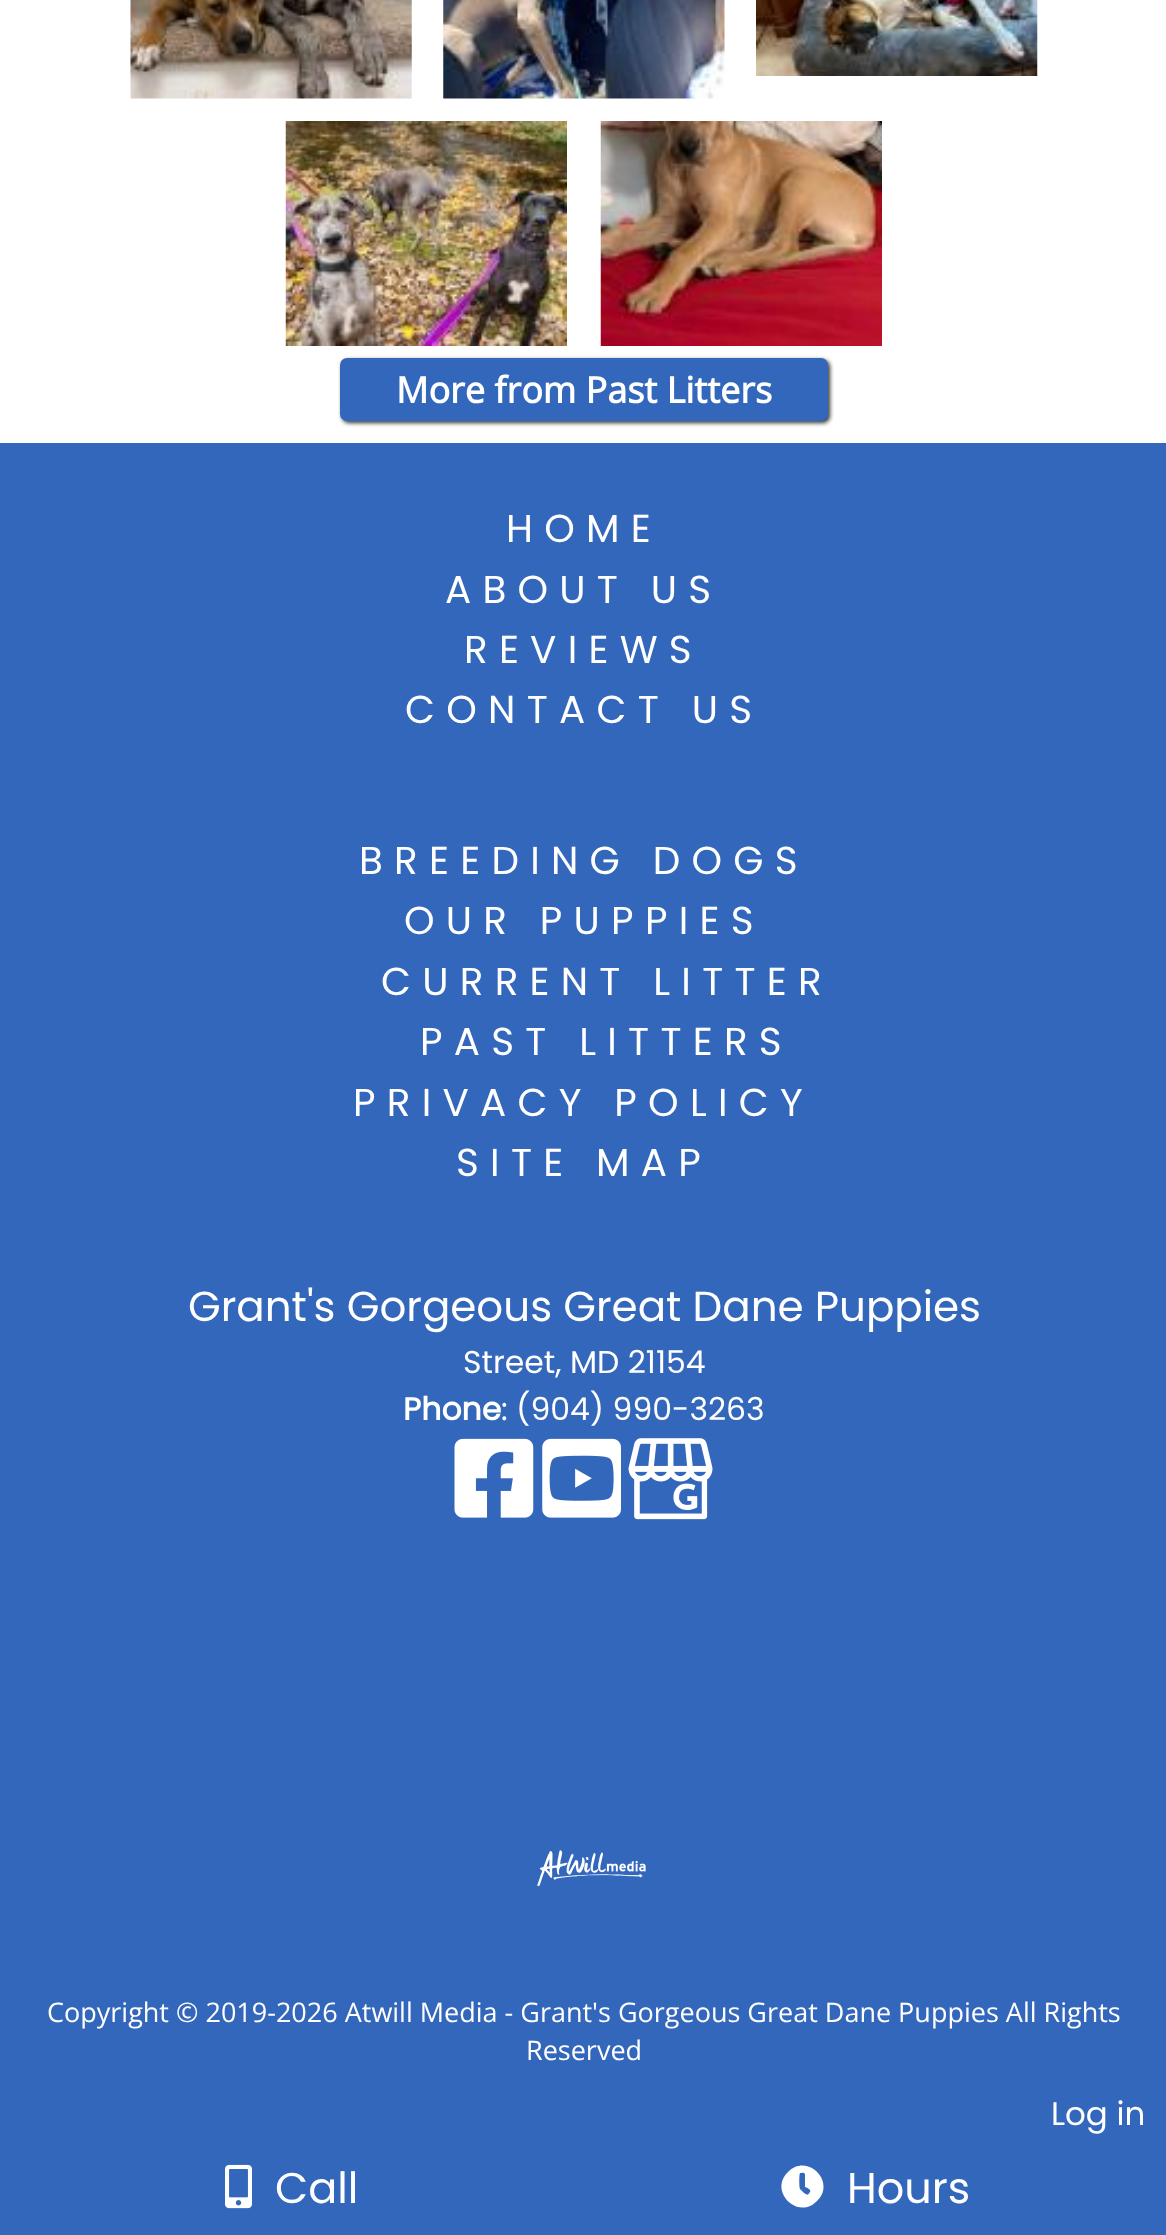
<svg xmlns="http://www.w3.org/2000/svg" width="1166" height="2235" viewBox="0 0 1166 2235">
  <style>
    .t1 { font: bold 36px Open Sans; fill: #fff; }
    .t2 { font: 38.9px Poppins; letter-spacing: 11.25px; fill: #fff; }
    .t3 { font: 42px Poppins; fill: #fff; }
    .t4 { font: 31.5px Poppins; fill: #fff; }
    .t5 { font: bold 31.5px Poppins; fill: #fff; }
    .t6 { font: 27px Open Sans; fill: #fff; }
    .t7 { font: 32.5px Poppins; fill: #fff; }
    .t8 { font: 43px Poppins; fill: #fff; }
  </style>
  <rect width="100%" height="100%" fill="#fff"/>
  <image x="130" y="0" width="282" height="99" href="images/1.png"/>
  <image x="443" y="0" width="282" height="99" href="images/2.png"/>
  <image x="756" y="0" width="282" height="76" href="images/3.png"/>
  <image x="285" y="121" width="282" height="225" href="images/4.png"/>
  <image x="600" y="121" width="282" height="225" href="images/5.png"/>
  <rect x="342" y="360" width="488" height="63" rx="7" fill="#333" filter="blur(2px)"/>
  <rect x="340" y="358" width="488" height="63" rx="7" fill="#3367bc"/>
  <text x="396" y="403" class="t1">More from Past Litters</text>
  <rect x="0" y="443" width="1166" height="1792" fill="#3367bc"/>
  <text x="506" y="542" class="t2">HOME</text>
  <text x="445" y="603" class="t2">ABOUT US</text>
  <text x="464" y="663" class="t2">REVIEWS</text>
  <text x="405" y="723" class="t2">CONTACT US</text>
  <text x="359" y="874" class="t2">BREEDING DOGS</text>
  <text x="404" y="934" class="t2">OUR PUPPIES</text>
  <text x="381" y="995" class="t2">CURRENT LITTER</text>
  <text x="420" y="1055" class="t2">PAST LITTERS</text>
  <text x="353" y="1116" class="t2">PRIVACY POLICY</text>
  <text x="456" y="1176" class="t2">SITE MAP</text>
  <text x="188" y="1321" class="t3">Grant's Gorgeous Great Dane Puppies</text>
  <text x="463" y="1373" class="t4">Street, MD 21154</text>
  <text x="403" y="1420" class="t5">Phone</text>
  <text x="501" y="1420" class="t4">: (904) 990-3263</text>
  <image x="454" y="1438" width="80" height="80" href="images/6.png"/>
  <image x="542" y="1438" width="79" height="80" href="images/7.png"/>
  <image x="628" y="1438" width="85" height="82" href="images/8.png"/>
  <image x="537" y="1850" width="109" height="36" href="images/9.png"/>
  <text x="47" y="2022" class="t6">Copyright © 2019-2026 Atwill Media - Grant's Gorgeous Great Dane Puppies All Rights</text>
  <text x="526" y="2060" class="t6">Reserved</text>
  <text x="1051" y="2125" class="t7">Log in</text>
  <image x="225" y="2164" width="27" height="45" href="images/10.png"/>
  <text x="275" y="2203" class="t8">Call</text>
  <path d="M788 2172C807 2152 837 2182 817 2201C798 2221 768 2191 788 2172ZM810 2192C812 2190 806 2187 805 2187V2174C804 2172 801 2173 800 2173C799 2174 799 2188 800 2189L804 2193C808 2195 807 2196 810 2192Z" fill="#fff"/>
  <text x="847" y="2203" class="t8">Hours</text>
</svg>
